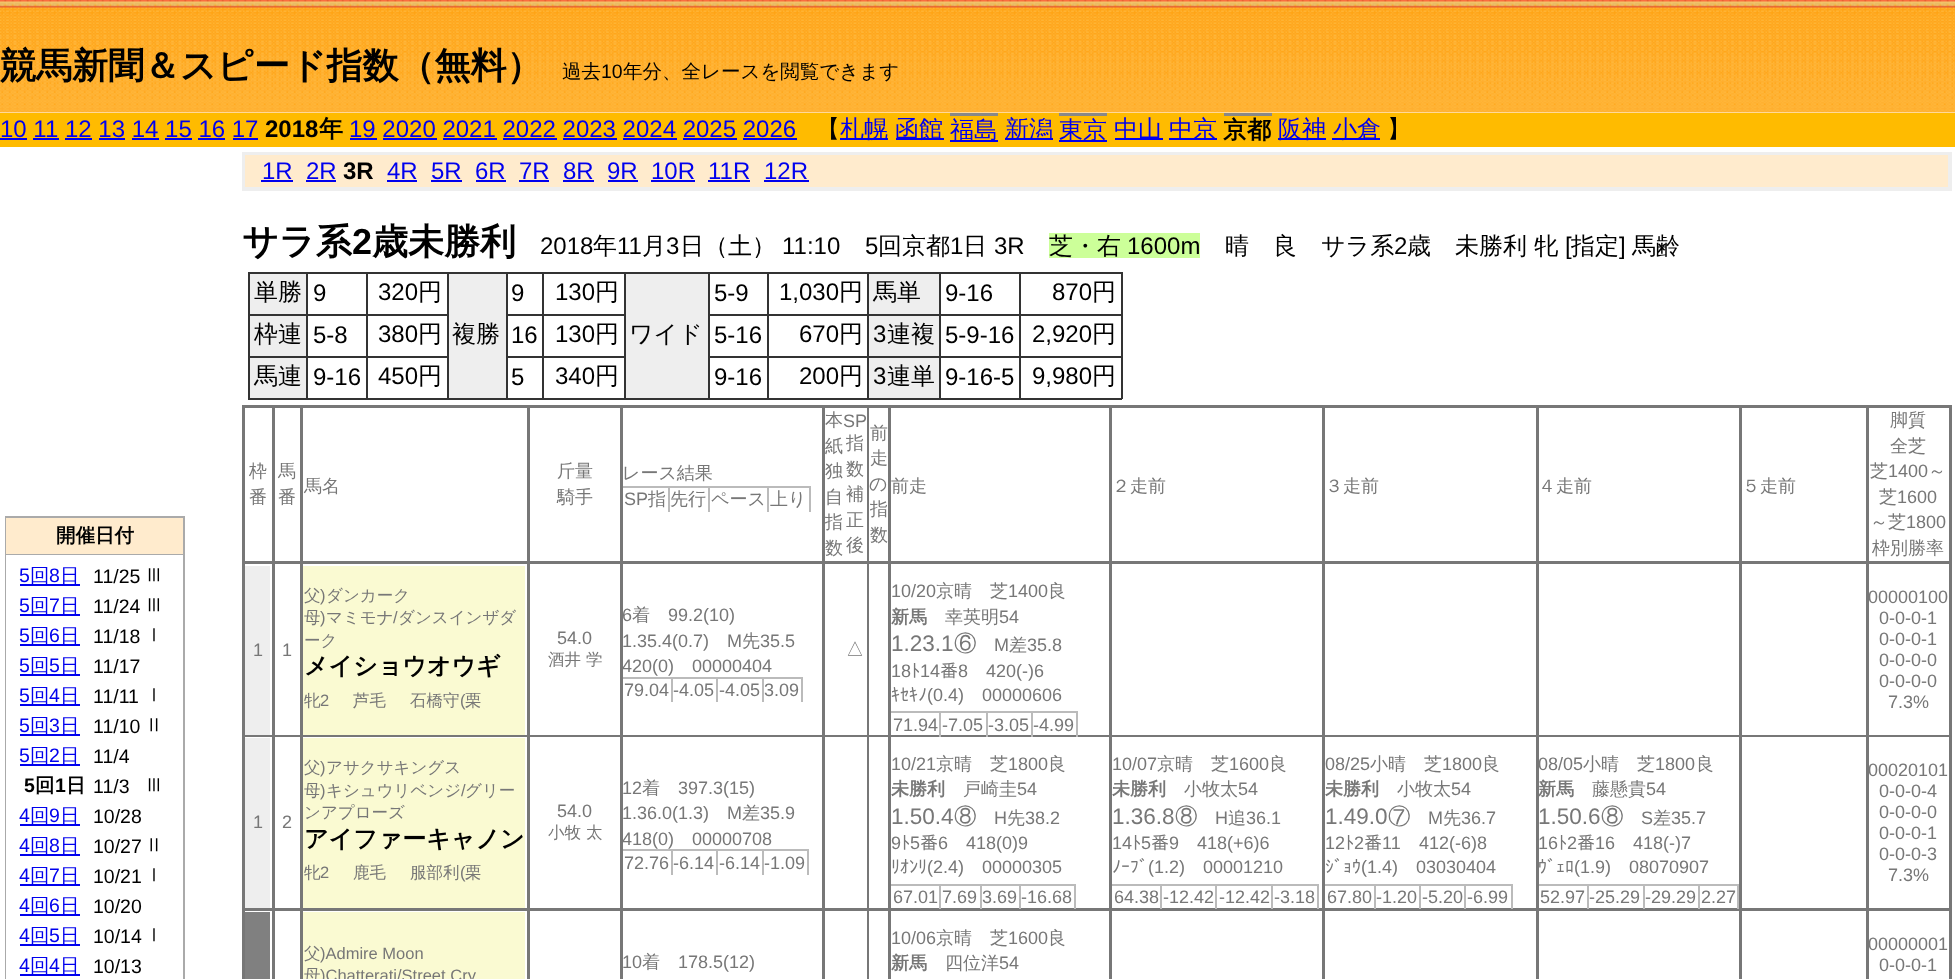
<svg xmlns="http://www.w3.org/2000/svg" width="1955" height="979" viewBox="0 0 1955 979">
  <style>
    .t1 { font: bold 36px WenQuanYi Zen Hei; fill: #000; }
    .t2 { font: 500 19.5px WenQuanYi Zen Hei; fill: #000; }
    .t3 { font: 19.5px Liberation Sans; fill: #000; }
    .t4 { font: 24px Liberation Sans; fill: #00e; }
    .t5 { font: bold 24px Liberation Sans; fill: #000; }
    .t6 { font: bold 24px WenQuanYi Zen Hei; fill: #000; }
    .t7 { font: 500 24px WenQuanYi Zen Hei; fill: #000; }
    .t8 { font: 500 24px WenQuanYi Zen Hei; fill: #00e; }
    .t9 { font: bold 19.5px WenQuanYi Zen Hei; fill: #000; }
    .t10 { font: 19.5px Liberation Sans; fill: #00e; }
    .t11 { font: 500 19.5px WenQuanYi Zen Hei; fill: #00e; }
    .t12 { font: 500 18px WenQuanYi Zen Hei; fill: #000; }
    .t13 { font: bold 19.5px Liberation Sans; fill: #000; }
    .t14 { font: bold 36px Liberation Sans; fill: #000; }
    .t15 { font: 24px Liberation Sans; fill: #000; }
    .t16 { font: 500 18px WenQuanYi Zen Hei; fill: #777; }
    .t17 { font: 18px Liberation Sans; fill: #777; }
    .t18 { font: 500 16.5px WenQuanYi Zen Hei; fill: #777; }
    .t19 { font: 16.5px Liberation Sans; fill: #777; }
    .t20 { font: bold 18px WenQuanYi Zen Hei; fill: #777; }
    .t21 { font: 22.5px Liberation Sans; fill: #777; }
    .t22 { font: 500 22.5px WenQuanYi Zen Hei; fill: #777; }
    .t23 { font: 18px IPAPGothic; fill: #777; }
  </style>
  <rect width="100%" height="100%" fill="#fff"/>
  <image x="0" y="0" width="1955" height="113" href="images/1.png"/>
  <text x="0" y="78" class="t1">競馬新聞＆スピード指数（無料）</text>
  <text x="562" y="78" class="t2">過去</text>
  <text x="601" y="78" class="t3">10</text>
  <text x="623" y="78" class="t2">年分、全レースを閲覧できます</text>
  <rect x="0" y="113" width="1955" height="34" fill="#fb0"/>
  <text x="0" y="137" class="t4">10 11 12 13 14 15 16 17</text>
  <rect x="0" y="138" width="27" height="2" fill="#00e"/>
  <text x="265" y="137" class="t5">2018</text>
  <text x="319" y="137" class="t6">年</text>
  <text x="349" y="137" class="t4">19 2020 2021 2022 2023 2024 2025 2026</text>
  <rect x="350" y="138" width="27" height="2" fill="#00e"/>
  <rect x="33" y="138" width="26" height="2" fill="#00e"/>
  <rect x="65" y="138" width="27" height="2" fill="#00e"/>
  <rect x="99" y="138" width="26" height="2" fill="#00e"/>
  <rect x="132" y="138" width="27" height="2" fill="#00e"/>
  <rect x="165" y="138" width="27" height="2" fill="#00e"/>
  <rect x="198" y="138" width="27" height="2" fill="#00e"/>
  <rect x="233" y="138" width="25" height="2" fill="#00e"/>
  <rect x="383" y="138" width="54" height="2" fill="#00e"/>
  <rect x="443" y="138" width="54" height="2" fill="#00e"/>
  <rect x="503" y="138" width="54" height="2" fill="#00e"/>
  <rect x="563" y="138" width="54" height="2" fill="#00e"/>
  <rect x="623" y="138" width="54" height="2" fill="#00e"/>
  <rect x="683" y="138" width="54" height="2" fill="#00e"/>
  <rect x="743" y="138" width="54" height="2" fill="#00e"/>
  <text x="816" y="137" class="t7">【</text>
  <rect x="840" y="138" width="48" height="2" fill="#00e"/>
  <text x="840" y="137" class="t8">札幌</text>
  <rect x="896" y="138" width="48" height="2" fill="#00e"/>
  <text x="895" y="137" class="t8">函館</text>
  <rect x="950" y="113" width="48" height="3" fill="#888"/>
  <rect x="950" y="140" width="48" height="2" fill="#00e"/>
  <text x="950" y="138" class="t8">福島</text>
  <rect x="1005" y="138" width="48" height="2" fill="#00e"/>
  <text x="1005" y="137" class="t8">新潟</text>
  <rect x="1059" y="113" width="48" height="3" fill="#888"/>
  <rect x="1059" y="140" width="48" height="2" fill="#00e"/>
  <text x="1059" y="138" class="t8">東京</text>
  <rect x="1115" y="138" width="48" height="2" fill="#00e"/>
  <text x="1114" y="137" class="t8">中山</text>
  <rect x="1169" y="138" width="48" height="2" fill="#00e"/>
  <text x="1169" y="137" class="t8">中京</text>
  <rect x="1224" y="113" width="48" height="3" fill="#888"/>
  <text x="1223" y="138" class="t6">京都</text>
  <rect x="1278" y="138" width="48" height="2" fill="#00e"/>
  <text x="1278" y="137" class="t8">阪神</text>
  <rect x="1332" y="138" width="48" height="2" fill="#00e"/>
  <text x="1333" y="137" class="t8">小倉</text>
  <text x="1387" y="137" class="t7">】</text>
  <rect x="5" y="516" width="180" height="463" fill="#aaa"/>
  <rect x="6" y="518" width="177" height="36" fill="#ffebcd"/>
  <text x="56" y="542" class="t9">開催日付</text>
  <rect x="6" y="555" width="177" height="424" fill="#fff"/>
  <text x="19" y="582" class="t10">5</text>
  <rect x="20" y="584" width="60" height="2" fill="#00e"/>
  <text x="30" y="582" class="t11">回</text>
  <text x="49" y="582" class="t10">8</text>
  <text x="60" y="582" class="t11">日</text>
  <text x="93" y="583" class="t3">11/25</text>
  <text x="145" y="581" class="t12">Ⅲ</text>
  <text x="19" y="612" class="t10">5</text>
  <rect x="20" y="614" width="60" height="2" fill="#00e"/>
  <text x="30" y="612" class="t11">回</text>
  <text x="49" y="612" class="t10">7</text>
  <text x="60" y="612" class="t11">日</text>
  <text x="93" y="613" class="t3">11/24</text>
  <text x="145" y="611" class="t12">Ⅲ</text>
  <text x="19" y="642" class="t10">5</text>
  <rect x="20" y="644" width="60" height="2" fill="#00e"/>
  <text x="30" y="642" class="t11">回</text>
  <text x="49" y="642" class="t10">6</text>
  <text x="60" y="642" class="t11">日</text>
  <text x="93" y="643" class="t3">11/18</text>
  <text x="145" y="641" class="t12">Ⅰ</text>
  <text x="19" y="672" class="t10">5</text>
  <rect x="20" y="674" width="60" height="2" fill="#00e"/>
  <text x="30" y="672" class="t11">回</text>
  <text x="49" y="672" class="t10">5</text>
  <text x="60" y="672" class="t11">日</text>
  <text x="93" y="673" class="t3">11/17</text>
  <text x="19" y="702" class="t10">5</text>
  <rect x="20" y="704" width="60" height="2" fill="#00e"/>
  <text x="30" y="702" class="t11">回</text>
  <text x="49" y="702" class="t10">4</text>
  <text x="60" y="702" class="t11">日</text>
  <text x="93" y="703" class="t3">11/11</text>
  <text x="145" y="701" class="t12">Ⅰ</text>
  <text x="19" y="732" class="t10">5</text>
  <rect x="20" y="734" width="60" height="2" fill="#00e"/>
  <text x="30" y="732" class="t11">回</text>
  <text x="49" y="732" class="t10">3</text>
  <text x="60" y="732" class="t11">日</text>
  <text x="93" y="733" class="t3">11/10</text>
  <text x="145" y="731" class="t12">Ⅱ</text>
  <text x="19" y="762" class="t10">5</text>
  <rect x="20" y="764" width="60" height="2" fill="#00e"/>
  <text x="30" y="762" class="t11">回</text>
  <text x="49" y="762" class="t10">2</text>
  <text x="60" y="762" class="t11">日</text>
  <text x="93" y="763" class="t3">11/4</text>
  <text x="24" y="792" class="t13">5</text>
  <text x="35" y="792" class="t9">回</text>
  <text x="55" y="792" class="t13">1</text>
  <text x="66" y="792" class="t9">日</text>
  <text x="93" y="793" class="t3">11/3</text>
  <text x="145" y="791" class="t12">Ⅲ</text>
  <text x="19" y="822" class="t10">4</text>
  <rect x="20" y="824" width="60" height="2" fill="#00e"/>
  <text x="30" y="822" class="t11">回</text>
  <text x="49" y="822" class="t10">9</text>
  <text x="60" y="822" class="t11">日</text>
  <text x="93" y="823" class="t3">10/28</text>
  <text x="19" y="852" class="t10">4</text>
  <rect x="20" y="854" width="60" height="2" fill="#00e"/>
  <text x="30" y="852" class="t11">回</text>
  <text x="49" y="852" class="t10">8</text>
  <text x="60" y="852" class="t11">日</text>
  <text x="93" y="853" class="t3">10/27</text>
  <text x="145" y="851" class="t12">Ⅱ</text>
  <text x="19" y="882" class="t10">4</text>
  <rect x="20" y="884" width="60" height="2" fill="#00e"/>
  <text x="30" y="882" class="t11">回</text>
  <text x="49" y="882" class="t10">7</text>
  <text x="60" y="882" class="t11">日</text>
  <text x="93" y="883" class="t3">10/21</text>
  <text x="145" y="881" class="t12">Ⅰ</text>
  <text x="19" y="912" class="t10">4</text>
  <rect x="20" y="914" width="60" height="2" fill="#00e"/>
  <text x="30" y="912" class="t11">回</text>
  <text x="49" y="912" class="t10">6</text>
  <text x="60" y="912" class="t11">日</text>
  <text x="93" y="913" class="t3">10/20</text>
  <text x="19" y="942" class="t10">4</text>
  <rect x="20" y="944" width="60" height="2" fill="#00e"/>
  <text x="30" y="942" class="t11">回</text>
  <text x="49" y="942" class="t10">5</text>
  <text x="60" y="942" class="t11">日</text>
  <text x="93" y="943" class="t3">10/14</text>
  <text x="145" y="941" class="t12">Ⅰ</text>
  <text x="19" y="972" class="t10">4</text>
  <rect x="20" y="974" width="60" height="2" fill="#00e"/>
  <text x="30" y="972" class="t11">回</text>
  <text x="49" y="972" class="t10">4</text>
  <text x="60" y="972" class="t11">日</text>
  <text x="93" y="973" class="t3">10/13</text>
  <rect x="243" y="153" width="1708" height="37" fill="none" stroke="#eee" stroke-width="2"/>
  <rect x="244" y="154" width="1705" height="34" fill="#ffebcd" stroke="#eee" stroke-width="2"/>
  <text x="262" y="179" class="t4">1R</text>
  <rect x="261" y="180" width="32" height="2" fill="#00e"/>
  <text x="306" y="179" class="t4">2R</text>
  <rect x="306" y="180" width="30" height="2" fill="#00e"/>
  <text x="343" y="179" class="t5">3R</text>
  <text x="387" y="179" class="t4">4R</text>
  <rect x="387" y="180" width="30" height="2" fill="#00e"/>
  <text x="431" y="179" class="t4">5R</text>
  <rect x="431" y="180" width="31" height="2" fill="#00e"/>
  <text x="475" y="179" class="t4">6R</text>
  <rect x="476" y="180" width="30" height="2" fill="#00e"/>
  <text x="519" y="179" class="t4">7R</text>
  <rect x="519" y="180" width="30" height="2" fill="#00e"/>
  <text x="563" y="179" class="t4">8R</text>
  <rect x="563" y="180" width="31" height="2" fill="#00e"/>
  <text x="607" y="179" class="t4">9R</text>
  <rect x="608" y="180" width="30" height="2" fill="#00e"/>
  <text x="651" y="179" class="t4">10R</text>
  <rect x="651" y="180" width="44" height="2" fill="#00e"/>
  <text x="708" y="179" class="t4">11R</text>
  <rect x="708" y="180" width="42" height="2" fill="#00e"/>
  <text x="764" y="179" class="t4">12R</text>
  <rect x="764" y="180" width="45" height="2" fill="#00e"/>
  <text x="242" y="254" class="t1">サラ系</text>
  <text x="352" y="254" class="t14">2</text>
  <text x="372" y="254" class="t1">歳未勝利</text>
  <text x="540" y="254" class="t15">2018</text>
  <text x="593" y="254" class="t7">年</text>
  <text x="617" y="254" class="t15">11</text>
  <text x="642" y="254" class="t7">月</text>
  <text x="666" y="254" class="t15">3</text>
  <text x="680" y="254" class="t7">日（土）</text>
  <text x="782" y="254" class="t15">11:10</text>
  <text x="865" y="254" class="t15">5</text>
  <text x="878" y="254" class="t7">回京都</text>
  <text x="950" y="254" class="t15">1</text>
  <text x="963" y="254" class="t7">日</text>
  <text x="994" y="254" class="t15">3R</text>
  <rect x="1049" y="233" width="151" height="25" fill="#cf9"/>
  <text x="1049" y="254" class="t7">芝・右</text>
  <text x="1127" y="254" class="t15">1600m</text>
  <text x="1225" y="254" class="t7">晴　良　サラ系</text>
  <text x="1394" y="254" class="t15">2</text>
  <text x="1407" y="254" class="t7">歳　未勝利 牝</text>
  <text x="1565" y="254" class="t15">[</text>
  <text x="1571" y="254" class="t7">指定</text>
  <text x="1619" y="254" class="t15">]</text>
  <text x="1632" y="254" class="t7">馬齢</text>
  <rect x="250" y="274" width="56" height="40" fill="#eee"/>
  <rect x="1019" y="272" width="103" height="2" fill="#333"/>
  <rect x="1019" y="314" width="103" height="2" fill="#333"/>
  <rect x="1019" y="356" width="103" height="2" fill="#333"/>
  <rect x="1121" y="356" width="2" height="43" fill="#333"/>
  <rect x="1019" y="398" width="103" height="2" fill="#333"/>
  <rect x="1019" y="356" width="2" height="43" fill="#333"/>
  <rect x="939" y="356" width="81" height="2" fill="#333"/>
  <rect x="1019" y="314" width="2" height="43" fill="#333"/>
  <rect x="939" y="314" width="81" height="2" fill="#333"/>
  <rect x="1019" y="272" width="2" height="43" fill="#333"/>
  <rect x="939" y="272" width="81" height="2" fill="#333"/>
  <rect x="939" y="398" width="81" height="2" fill="#333"/>
  <rect x="939" y="356" width="2" height="43" fill="#333"/>
  <rect x="867" y="356" width="74" height="2" fill="#333"/>
  <rect x="939" y="314" width="2" height="43" fill="#333"/>
  <rect x="867" y="314" width="74" height="2" fill="#333"/>
  <rect x="939" y="272" width="2" height="43" fill="#333"/>
  <rect x="867" y="272" width="74" height="2" fill="#333"/>
  <rect x="867" y="398" width="74" height="2" fill="#333"/>
  <rect x="867" y="356" width="2" height="43" fill="#333"/>
  <rect x="767" y="356" width="102" height="2" fill="#333"/>
  <rect x="867" y="314" width="2" height="43" fill="#333"/>
  <rect x="767" y="314" width="102" height="2" fill="#333"/>
  <rect x="867" y="272" width="2" height="43" fill="#333"/>
  <rect x="767" y="272" width="102" height="2" fill="#333"/>
  <rect x="767" y="398" width="102" height="2" fill="#333"/>
  <rect x="767" y="356" width="2" height="43" fill="#333"/>
  <rect x="708" y="356" width="60" height="2" fill="#333"/>
  <rect x="767" y="314" width="2" height="43" fill="#333"/>
  <rect x="708" y="314" width="60" height="2" fill="#333"/>
  <rect x="767" y="272" width="2" height="43" fill="#333"/>
  <rect x="708" y="272" width="60" height="2" fill="#333"/>
  <rect x="708" y="398" width="60" height="2" fill="#333"/>
  <rect x="708" y="356" width="2" height="43" fill="#333"/>
  <rect x="708" y="314" width="2" height="43" fill="#333"/>
  <rect x="708" y="272" width="2" height="43" fill="#333"/>
  <rect x="624" y="272" width="86" height="2" fill="#333"/>
  <rect x="542" y="314" width="84" height="2" fill="#333"/>
  <rect x="542" y="356" width="84" height="2" fill="#333"/>
  <rect x="542" y="398" width="168" height="2" fill="#333"/>
  <rect x="624" y="272" width="2" height="127" fill="#333"/>
  <rect x="542" y="272" width="84" height="2" fill="#333"/>
  <rect x="542" y="356" width="2" height="43" fill="#333"/>
  <rect x="506" y="356" width="37" height="2" fill="#333"/>
  <rect x="542" y="314" width="2" height="43" fill="#333"/>
  <rect x="506" y="314" width="37" height="2" fill="#333"/>
  <rect x="542" y="272" width="2" height="43" fill="#333"/>
  <rect x="506" y="272" width="37" height="2" fill="#333"/>
  <rect x="506" y="398" width="37" height="2" fill="#333"/>
  <rect x="506" y="356" width="2" height="43" fill="#333"/>
  <rect x="506" y="314" width="2" height="43" fill="#333"/>
  <rect x="506" y="272" width="2" height="43" fill="#333"/>
  <rect x="447" y="272" width="60" height="2" fill="#333"/>
  <rect x="366" y="314" width="83" height="2" fill="#333"/>
  <rect x="366" y="356" width="83" height="2" fill="#333"/>
  <rect x="366" y="398" width="141" height="2" fill="#333"/>
  <rect x="447" y="272" width="2" height="127" fill="#333"/>
  <rect x="366" y="272" width="83" height="2" fill="#333"/>
  <rect x="366" y="356" width="2" height="43" fill="#333"/>
  <rect x="306" y="356" width="62" height="2" fill="#333"/>
  <rect x="366" y="314" width="2" height="43" fill="#333"/>
  <rect x="306" y="314" width="62" height="2" fill="#333"/>
  <rect x="366" y="272" width="2" height="43" fill="#333"/>
  <rect x="306" y="272" width="62" height="2" fill="#333"/>
  <rect x="306" y="398" width="62" height="2" fill="#333"/>
  <rect x="306" y="356" width="2" height="43" fill="#333"/>
  <rect x="248" y="356" width="60" height="2" fill="#333"/>
  <rect x="306" y="314" width="2" height="43" fill="#333"/>
  <rect x="248" y="314" width="60" height="2" fill="#333"/>
  <rect x="306" y="272" width="2" height="43" fill="#333"/>
  <rect x="248" y="272" width="60" height="2" fill="#333"/>
  <rect x="248" y="398" width="60" height="2" fill="#333"/>
  <rect x="248" y="356" width="2" height="43" fill="#333"/>
  <rect x="248" y="314" width="2" height="43" fill="#333"/>
  <rect x="248" y="272" width="2" height="43" fill="#333"/>
  <text x="254" y="300" class="t7">単勝</text>
  <text x="313" y="301" class="t15">9</text>
  <text x="378" y="300" class="t15">320</text>
  <text x="418" y="300" class="t7">円</text>
  <text x="511" y="301" class="t15">9</text>
  <text x="555" y="300" class="t15">130</text>
  <text x="595" y="300" class="t7">円</text>
  <text x="714" y="301" class="t15">5-9</text>
  <text x="779" y="300" class="t15">1,030</text>
  <text x="839" y="300" class="t7">円</text>
  <rect x="869" y="274" width="70" height="40" fill="#eee"/>
  <text x="873" y="300" class="t7">馬単</text>
  <text x="945" y="301" class="t15">9-16</text>
  <rect x="1121" y="314" width="2" height="43" fill="#333"/>
  <rect x="1121" y="272" width="2" height="43" fill="#333"/>
  <text x="1052" y="300" class="t15">870</text>
  <text x="1092" y="300" class="t7">円</text>
  <rect x="449" y="274" width="57" height="124" fill="#eee"/>
  <text x="452" y="342" class="t7">複勝</text>
  <rect x="626" y="274" width="82" height="124" fill="#eee"/>
  <text x="629" y="342" class="t7">ワイド</text>
  <rect x="250" y="316" width="56" height="40" fill="#eee"/>
  <text x="254" y="342" class="t7">枠連</text>
  <text x="313" y="343" class="t15">5-8</text>
  <text x="378" y="342" class="t15">380</text>
  <text x="418" y="342" class="t7">円</text>
  <text x="511" y="343" class="t15">16</text>
  <text x="555" y="342" class="t15">130</text>
  <text x="595" y="342" class="t7">円</text>
  <text x="714" y="343" class="t15">5-16</text>
  <text x="799" y="342" class="t15">670</text>
  <text x="839" y="342" class="t7">円</text>
  <rect x="869" y="316" width="70" height="40" fill="#eee"/>
  <text x="873" y="342" class="t15">3</text>
  <text x="887" y="342" class="t7">連複</text>
  <text x="945" y="343" class="t15">5-9-16</text>
  <text x="1032" y="342" class="t15">2,920</text>
  <text x="1092" y="342" class="t7">円</text>
  <rect x="250" y="358" width="56" height="40" fill="#eee"/>
  <text x="254" y="384" class="t7">馬連</text>
  <text x="313" y="385" class="t15">9-16</text>
  <text x="378" y="384" class="t15">450</text>
  <text x="418" y="384" class="t7">円</text>
  <text x="511" y="385" class="t15">5</text>
  <text x="555" y="384" class="t15">340</text>
  <text x="595" y="384" class="t7">円</text>
  <text x="714" y="385" class="t15">9-16</text>
  <text x="799" y="384" class="t15">200</text>
  <text x="839" y="384" class="t7">円</text>
  <rect x="869" y="358" width="70" height="40" fill="#eee"/>
  <text x="873" y="384" class="t15">3</text>
  <text x="887" y="384" class="t7">連単</text>
  <text x="945" y="385" class="t15">9-16-5</text>
  <text x="1032" y="384" class="t15">9,980</text>
  <text x="1092" y="384" class="t7">円</text>
  <rect x="243" y="735" width="1709" height="2" fill="#777"/>
  <rect x="867" y="909" width="2" height="70" fill="#777"/>
  <rect x="867" y="407" width="2" height="504" fill="#777"/>
  <rect x="242" y="405" width="1710" height="3" fill="#777"/>
  <rect x="1949" y="405" width="3" height="574" fill="#777"/>
  <rect x="242" y="405" width="3" height="574" fill="#777"/>
  <text x="249" y="477" class="t16">枠</text>
  <text x="249" y="503" class="t16">番</text>
  <text x="278" y="477" class="t16">馬</text>
  <text x="278" y="503" class="t16">番</text>
  <text x="304" y="492" class="t16">馬名</text>
  <text x="557" y="477" class="t16">斤量</text>
  <text x="557" y="503" class="t16">騎手</text>
  <text x="622" y="479" class="t16">レース結果</text>
  <text x="624" y="505" class="t17">SP</text>
  <rect x="623" y="486" width="46" height="2" fill="#bbb"/>
  <text x="648" y="505" class="t16">指</text>
  <rect x="668" y="486" width="2" height="26" fill="#bbb"/>
  <text x="670" y="505" class="t16">先行</text>
  <rect x="669" y="486" width="99" height="2" fill="#bbb"/>
  <rect x="708" y="486" width="2" height="26" fill="#bbb"/>
  <text x="711" y="505" class="t16">ペース</text>
  <rect x="767" y="486" width="2" height="26" fill="#bbb"/>
  <text x="770" y="505" class="t16">上り</text>
  <rect x="768" y="486" width="42" height="2" fill="#bbb"/>
  <rect x="809" y="486" width="2" height="26" fill="#bbb"/>
  <text x="825" y="426" class="t16">本</text>
  <text x="825" y="452" class="t16">紙</text>
  <text x="825" y="477" class="t16">独</text>
  <text x="825" y="503" class="t16">自</text>
  <text x="825" y="528" class="t16">指</text>
  <text x="825" y="554" class="t16">数</text>
  <text x="843" y="427" class="t17">SP</text>
  <text x="846" y="449" class="t16">指</text>
  <text x="846" y="475" class="t16">数</text>
  <text x="846" y="500" class="t16">補</text>
  <text x="846" y="526" class="t16">正</text>
  <text x="846" y="551" class="t16">後</text>
  <text x="870" y="439" class="t16">前</text>
  <text x="870" y="464" class="t16">走</text>
  <text x="869" y="490" class="t16">の</text>
  <text x="870" y="515" class="t16">指</text>
  <text x="870" y="541" class="t16">数</text>
  <text x="891" y="492" class="t16">前走</text>
  <text x="1112" y="492" class="t16">２走前</text>
  <text x="1325" y="492" class="t16">３走前</text>
  <text x="1538" y="492" class="t16">４走前</text>
  <text x="1742" y="492" class="t16">５走前</text>
  <text x="1890" y="426" class="t16">脚質</text>
  <text x="1890" y="452" class="t16">全芝</text>
  <text x="1870" y="477" class="t16">芝</text>
  <text x="1888" y="477" class="t17">1400</text>
  <text x="1928" y="477" class="t16">～</text>
  <text x="1879" y="503" class="t16">芝</text>
  <text x="1897" y="503" class="t17">1600</text>
  <text x="1870" y="528" class="t16">～芝</text>
  <text x="1906" y="528" class="t17">1800</text>
  <text x="1872" y="554" class="t16">枠別勝率</text>
  <rect x="245" y="566" width="25" height="169" fill="#eee"/>
  <rect x="242" y="561" width="1710" height="3" fill="#777"/>
  <rect x="242" y="908" width="1710" height="3" fill="#777"/>
  <rect x="272" y="735" width="3" height="244" fill="#777"/>
  <rect x="272" y="405" width="3" height="333" fill="#777"/>
  <text x="253" y="656" class="t17">1</text>
  <rect x="300" y="735" width="3" height="244" fill="#777"/>
  <rect x="300" y="405" width="3" height="333" fill="#777"/>
  <text x="282" y="656" class="t17">1</text>
  <rect x="303" y="566" width="222" height="169" fill="#fafad2"/>
  <rect x="527" y="735" width="3" height="244" fill="#777"/>
  <rect x="527" y="405" width="3" height="333" fill="#777"/>
  <text x="304" y="601" class="t18">父</text>
  <text x="320" y="601" class="t19">)</text>
  <text x="326" y="601" class="t18">ダンカーク</text>
  <text x="304" y="623" class="t18">母</text>
  <text x="320" y="623" class="t19">)</text>
  <text x="326" y="623" class="t18">マミモナ</text>
  <text x="393" y="623" class="t19">/</text>
  <text x="398" y="623" class="t18">ダンスインザダ</text>
  <text x="304" y="646" class="t18">ーク</text>
  <text x="304" y="674" class="t6">メイショウオウギ</text>
  <text x="304" y="706" class="t18">牝</text>
  <text x="320" y="706" class="t19">2</text>
  <text x="353" y="706" class="t18">芦毛</text>
  <text x="410" y="706" class="t18">石橋守</text>
  <text x="460" y="706" class="t19">(</text>
  <text x="465" y="706" class="t18">栗</text>
  <rect x="620" y="735" width="3" height="244" fill="#777"/>
  <rect x="620" y="405" width="3" height="333" fill="#777"/>
  <text x="557" y="644" class="t17">54.0</text>
  <text x="548" y="665" class="t18">酒井 学</text>
  <rect x="822" y="735" width="3" height="244" fill="#777"/>
  <rect x="822" y="405" width="3" height="333" fill="#777"/>
  <text x="622" y="621" class="t17">6</text>
  <text x="632" y="621" class="t16">着</text>
  <text x="668" y="621" class="t17">99.2(10)</text>
  <text x="622" y="647" class="t17">1.35.4(0.7)</text>
  <text x="727" y="647" class="t17">M</text>
  <text x="742" y="647" class="t16">先</text>
  <text x="760" y="647" class="t17">35.5</text>
  <text x="622" y="672" class="t17">420(0)</text>
  <text x="692" y="672" class="t17">00000404</text>
  <text x="624" y="696" class="t17">79.04</text>
  <rect x="623" y="677" width="49" height="2" fill="#bbb"/>
  <text x="673" y="696" class="t17">-4.05</text>
  <rect x="671" y="677" width="2" height="25" fill="#bbb"/>
  <rect x="672" y="677" width="45" height="2" fill="#bbb"/>
  <text x="719" y="696" class="t17">-4.05</text>
  <rect x="716" y="677" width="2" height="25" fill="#bbb"/>
  <rect x="717" y="677" width="86" height="2" fill="#bbb"/>
  <text x="764" y="696" class="t17">3.09</text>
  <rect x="762" y="677" width="2" height="25" fill="#bbb"/>
  <rect x="801" y="677" width="2" height="25" fill="#bbb"/>
  <text x="846" y="655" class="t16">△</text>
  <rect x="888" y="735" width="3" height="244" fill="#777"/>
  <rect x="888" y="405" width="3" height="333" fill="#777"/>
  <rect x="1109" y="735" width="3" height="244" fill="#777"/>
  <rect x="1109" y="405" width="3" height="333" fill="#777"/>
  <text x="891" y="597" class="t17">10/20</text>
  <text x="936" y="597" class="t16">京晴　芝</text>
  <text x="1008" y="597" class="t17">1400</text>
  <text x="1048" y="597" class="t16">良</text>
  <text x="891" y="623" class="t20">新馬</text>
  <text x="945" y="623" class="t16">幸英明</text>
  <text x="999" y="623" class="t17">54</text>
  <text x="891" y="651" class="t21">1.23.1</text>
  <text x="954" y="651" class="t22">⑥</text>
  <text x="994" y="651" class="t17">M</text>
  <text x="1009" y="651" class="t16">差</text>
  <text x="1027" y="651" class="t17">35.8</text>
  <text x="891" y="677" class="t17">18</text>
  <text x="911" y="677" class="t23">ﾄ</text>
  <text x="920" y="677" class="t17">14</text>
  <text x="940" y="677" class="t23">番</text>
  <text x="958" y="677" class="t17">8</text>
  <text x="986" y="677" class="t17">420(-)6</text>
  <text x="891" y="701" class="t23">ｷｾｷﾉ</text>
  <text x="927" y="701" class="t17">(0.4)</text>
  <text x="982" y="701" class="t17">00000606</text>
  <text x="893" y="731" class="t17">71.94</text>
  <rect x="891" y="711" width="96" height="2" fill="#bbb"/>
  <rect x="939" y="711" width="2" height="26" fill="#bbb"/>
  <text x="942" y="731" class="t17">-7.05</text>
  <text x="988" y="731" class="t17">-3.05</text>
  <rect x="986" y="711" width="2" height="26" fill="#bbb"/>
  <rect x="987" y="711" width="45" height="2" fill="#bbb"/>
  <text x="1033" y="731" class="t17">-4.99</text>
  <rect x="1031" y="711" width="2" height="26" fill="#bbb"/>
  <rect x="1032" y="711" width="45" height="2" fill="#bbb"/>
  <rect x="1076" y="711" width="2" height="26" fill="#bbb"/>
  <rect x="1322" y="735" width="3" height="244" fill="#777"/>
  <rect x="1322" y="405" width="3" height="333" fill="#777"/>
  <rect x="1536" y="735" width="3" height="244" fill="#777"/>
  <rect x="1536" y="405" width="3" height="333" fill="#777"/>
  <rect x="1739" y="735" width="3" height="244" fill="#777"/>
  <rect x="1739" y="405" width="3" height="333" fill="#777"/>
  <rect x="1866" y="735" width="3" height="244" fill="#777"/>
  <rect x="1866" y="405" width="3" height="333" fill="#777"/>
  <text x="1868" y="603" class="t17">00000100</text>
  <text x="1879" y="624" class="t17">0-0-0-1</text>
  <text x="1879" y="645" class="t17">0-0-0-1</text>
  <text x="1879" y="666" class="t17">0-0-0-0</text>
  <text x="1879" y="687" class="t17">0-0-0-0</text>
  <text x="1888" y="708" class="t17">7.3%</text>
  <rect x="245" y="738" width="25" height="170" fill="#eee"/>
  <text x="253" y="828" class="t17">1</text>
  <text x="282" y="828" class="t17">2</text>
  <rect x="303" y="738" width="222" height="170" fill="#fafad2"/>
  <text x="304" y="773" class="t18">父</text>
  <text x="320" y="773" class="t19">)</text>
  <text x="326" y="773" class="t18">アサクサキングス</text>
  <text x="304" y="796" class="t18">母</text>
  <text x="320" y="796" class="t19">)</text>
  <text x="326" y="796" class="t18">キシュウリベンジ</text>
  <text x="461" y="796" class="t19">/</text>
  <text x="465" y="796" class="t18">グリー</text>
  <text x="304" y="818" class="t18">ンアプローズ</text>
  <text x="304" y="847" class="t6">アイファーキャノン</text>
  <text x="304" y="878" class="t18">牝</text>
  <text x="320" y="878" class="t19">2</text>
  <text x="353" y="878" class="t18">鹿毛</text>
  <text x="410" y="878" class="t18">服部利</text>
  <text x="460" y="878" class="t19">(</text>
  <text x="465" y="878" class="t18">栗</text>
  <text x="557" y="817" class="t17">54.0</text>
  <text x="548" y="838" class="t18">小牧 太</text>
  <text x="622" y="794" class="t17">12</text>
  <text x="642" y="794" class="t16">着</text>
  <text x="678" y="794" class="t17">397.3(15)</text>
  <text x="622" y="819" class="t17">1.36.0(1.3)</text>
  <text x="727" y="819" class="t17">M</text>
  <text x="742" y="819" class="t16">差</text>
  <text x="760" y="819" class="t17">35.9</text>
  <text x="622" y="845" class="t17">418(0)</text>
  <text x="692" y="845" class="t17">00000708</text>
  <text x="624" y="869" class="t17">72.76</text>
  <rect x="623" y="849" width="49" height="2" fill="#bbb"/>
  <text x="673" y="869" class="t17">-6.14</text>
  <rect x="671" y="849" width="2" height="26" fill="#bbb"/>
  <rect x="672" y="849" width="45" height="2" fill="#bbb"/>
  <text x="719" y="869" class="t17">-6.14</text>
  <rect x="716" y="849" width="2" height="26" fill="#bbb"/>
  <rect x="717" y="849" width="92" height="2" fill="#bbb"/>
  <text x="764" y="869" class="t17">-1.09</text>
  <rect x="762" y="849" width="2" height="26" fill="#bbb"/>
  <rect x="807" y="849" width="2" height="26" fill="#bbb"/>
  <text x="891" y="770" class="t17">10/21</text>
  <text x="936" y="770" class="t16">京晴　芝</text>
  <text x="1008" y="770" class="t17">1800</text>
  <text x="1048" y="770" class="t16">良</text>
  <text x="891" y="795" class="t20">未勝利</text>
  <text x="963" y="795" class="t16">戸崎圭</text>
  <text x="1017" y="795" class="t17">54</text>
  <text x="891" y="824" class="t21">1.50.4</text>
  <text x="954" y="824" class="t22">⑧</text>
  <text x="994" y="824" class="t17">H</text>
  <text x="1007" y="824" class="t16">先</text>
  <text x="1025" y="824" class="t17">38.2</text>
  <text x="891" y="849" class="t17">9</text>
  <text x="901" y="849" class="t23">ﾄ</text>
  <text x="910" y="849" class="t17">5</text>
  <text x="920" y="849" class="t23">番</text>
  <text x="938" y="849" class="t17">6</text>
  <text x="966" y="849" class="t17">418(0)9</text>
  <text x="891" y="873" class="t23">ﾘｵﾝﾘ</text>
  <text x="927" y="873" class="t17">(2.4)</text>
  <text x="982" y="873" class="t17">00000305</text>
  <text x="893" y="903" class="t17">67.01</text>
  <rect x="891" y="884" width="90" height="2" fill="#bbb"/>
  <rect x="939" y="884" width="2" height="25" fill="#bbb"/>
  <text x="942" y="903" class="t17">7.69</text>
  <text x="982" y="903" class="t17">3.69</text>
  <rect x="980" y="884" width="2" height="25" fill="#bbb"/>
  <rect x="981" y="884" width="39" height="2" fill="#bbb"/>
  <text x="1021" y="903" class="t17">-16.68</text>
  <rect x="1019" y="884" width="2" height="25" fill="#bbb"/>
  <rect x="1020" y="884" width="56" height="2" fill="#bbb"/>
  <rect x="1074" y="884" width="2" height="25" fill="#bbb"/>
  <text x="1112" y="770" class="t17">10/07</text>
  <text x="1157" y="770" class="t16">京晴　芝</text>
  <text x="1229" y="770" class="t17">1600</text>
  <text x="1269" y="770" class="t16">良</text>
  <text x="1112" y="795" class="t20">未勝利</text>
  <text x="1184" y="795" class="t16">小牧太</text>
  <text x="1238" y="795" class="t17">54</text>
  <text x="1112" y="824" class="t21">1.36.8</text>
  <text x="1175" y="824" class="t22">⑧</text>
  <text x="1215" y="824" class="t17">H</text>
  <text x="1228" y="824" class="t16">追</text>
  <text x="1246" y="824" class="t17">36.1</text>
  <text x="1112" y="849" class="t17">14</text>
  <text x="1132" y="849" class="t23">ﾄ</text>
  <text x="1141" y="849" class="t17">5</text>
  <text x="1151" y="849" class="t23">番</text>
  <text x="1169" y="849" class="t17">9</text>
  <text x="1197" y="849" class="t17">418(+6)6</text>
  <text x="1112" y="873" class="t23">ﾉｰﾌﾞ</text>
  <text x="1148" y="873" class="t17">(1.2)</text>
  <text x="1203" y="873" class="t17">00001210</text>
  <text x="1114" y="903" class="t17">64.38</text>
  <rect x="1112" y="884" width="49" height="2" fill="#bbb"/>
  <text x="1163" y="903" class="t17">-12.42</text>
  <rect x="1160" y="884" width="2" height="25" fill="#bbb"/>
  <rect x="1161" y="884" width="111" height="2" fill="#bbb"/>
  <rect x="1215" y="884" width="2" height="25" fill="#bbb"/>
  <text x="1219" y="903" class="t17">-12.42</text>
  <rect x="1271" y="884" width="2" height="25" fill="#bbb"/>
  <text x="1274" y="903" class="t17">-3.18</text>
  <rect x="1272" y="884" width="47" height="2" fill="#bbb"/>
  <rect x="1317" y="884" width="2" height="25" fill="#bbb"/>
  <text x="1325" y="770" class="t17">08/25</text>
  <text x="1370" y="770" class="t16">小晴　芝</text>
  <text x="1442" y="770" class="t17">1800</text>
  <text x="1482" y="770" class="t16">良</text>
  <text x="1325" y="795" class="t20">未勝利</text>
  <text x="1397" y="795" class="t16">小牧太</text>
  <text x="1451" y="795" class="t17">54</text>
  <text x="1325" y="824" class="t21">1.49.0</text>
  <text x="1388" y="824" class="t22">⑦</text>
  <text x="1428" y="824" class="t17">M</text>
  <text x="1443" y="824" class="t16">先</text>
  <text x="1461" y="824" class="t17">36.7</text>
  <text x="1325" y="849" class="t17">12</text>
  <text x="1345" y="849" class="t23">ﾄ</text>
  <text x="1354" y="849" class="t17">2</text>
  <text x="1364" y="849" class="t23">番</text>
  <text x="1382" y="849" class="t17">11</text>
  <text x="1419" y="849" class="t17">412(-6)8</text>
  <text x="1325" y="873" class="t23">ｼﾞｮｳ</text>
  <text x="1361" y="873" class="t17">(1.4)</text>
  <text x="1416" y="873" class="t17">03030404</text>
  <text x="1327" y="903" class="t17">67.80</text>
  <rect x="1325" y="884" width="187" height="2" fill="#bbb"/>
  <text x="1376" y="903" class="t17">-1.20</text>
  <rect x="1374" y="884" width="2" height="25" fill="#bbb"/>
  <text x="1422" y="903" class="t17">-5.20</text>
  <rect x="1419" y="884" width="2" height="25" fill="#bbb"/>
  <rect x="1464" y="884" width="2" height="25" fill="#bbb"/>
  <text x="1467" y="903" class="t17">-6.99</text>
  <rect x="1511" y="884" width="2" height="25" fill="#bbb"/>
  <text x="1538" y="770" class="t17">08/05</text>
  <text x="1583" y="770" class="t16">小晴　芝</text>
  <text x="1655" y="770" class="t17">1800</text>
  <text x="1696" y="770" class="t16">良</text>
  <text x="1538" y="795" class="t20">新馬</text>
  <text x="1592" y="795" class="t16">藤懸貴</text>
  <text x="1646" y="795" class="t17">54</text>
  <text x="1538" y="824" class="t21">1.50.6</text>
  <text x="1601" y="824" class="t22">⑧</text>
  <text x="1641" y="824" class="t17">S</text>
  <text x="1653" y="824" class="t16">差</text>
  <text x="1671" y="824" class="t17">35.7</text>
  <text x="1538" y="849" class="t17">16</text>
  <text x="1558" y="849" class="t23">ﾄ</text>
  <text x="1567" y="849" class="t17">2</text>
  <text x="1577" y="849" class="t23">番</text>
  <text x="1595" y="849" class="t17">16</text>
  <text x="1633" y="849" class="t17">418(-)7</text>
  <text x="1538" y="873" class="t23">ｳﾞｪﾛ</text>
  <text x="1574" y="873" class="t17">(1.9)</text>
  <text x="1629" y="873" class="t17">08070907</text>
  <text x="1540" y="903" class="t17">52.97</text>
  <rect x="1539" y="884" width="105" height="2" fill="#bbb"/>
  <text x="1589" y="903" class="t17">-25.29</text>
  <rect x="1587" y="884" width="2" height="25" fill="#bbb"/>
  <text x="1645" y="903" class="t17">-29.29</text>
  <rect x="1643" y="884" width="2" height="25" fill="#bbb"/>
  <text x="1701" y="903" class="t17">2.27</text>
  <rect x="1644" y="884" width="95" height="2" fill="#bbb"/>
  <rect x="1698" y="884" width="2" height="25" fill="#bbb"/>
  <rect x="1737" y="884" width="2" height="25" fill="#bbb"/>
  <text x="1868" y="776" class="t17">00020101</text>
  <text x="1879" y="797" class="t17">0-0-0-4</text>
  <text x="1879" y="818" class="t17">0-0-0-0</text>
  <text x="1879" y="839" class="t17">0-0-0-1</text>
  <text x="1879" y="860" class="t17">0-0-0-3</text>
  <text x="1888" y="881" class="t17">7.3%</text>
  <rect x="245" y="912" width="25" height="67" fill="#808080"/>
  <rect x="303" y="912" width="222" height="67" fill="#fafad2"/>
  <text x="304" y="959" class="t18">父</text>
  <text x="320" y="959" class="t19">)Admire Moon</text>
  <text x="304" y="981" class="t18">母</text>
  <text x="320" y="981" class="t19">)Chatterati/Street Cry</text>
  <text x="622" y="968" class="t17">10</text>
  <text x="642" y="968" class="t16">着</text>
  <text x="678" y="968" class="t17">178.5(12)</text>
  <text x="891" y="944" class="t17">10/06</text>
  <text x="936" y="944" class="t16">京晴　芝</text>
  <text x="1008" y="944" class="t17">1600</text>
  <text x="1048" y="944" class="t16">良</text>
  <text x="891" y="969" class="t20">新馬</text>
  <text x="945" y="969" class="t16">四位洋</text>
  <text x="999" y="969" class="t17">54</text>
  <text x="1868" y="950" class="t17">00000001</text>
  <text x="1879" y="971" class="t17">0-0-0-1</text>
</svg>
